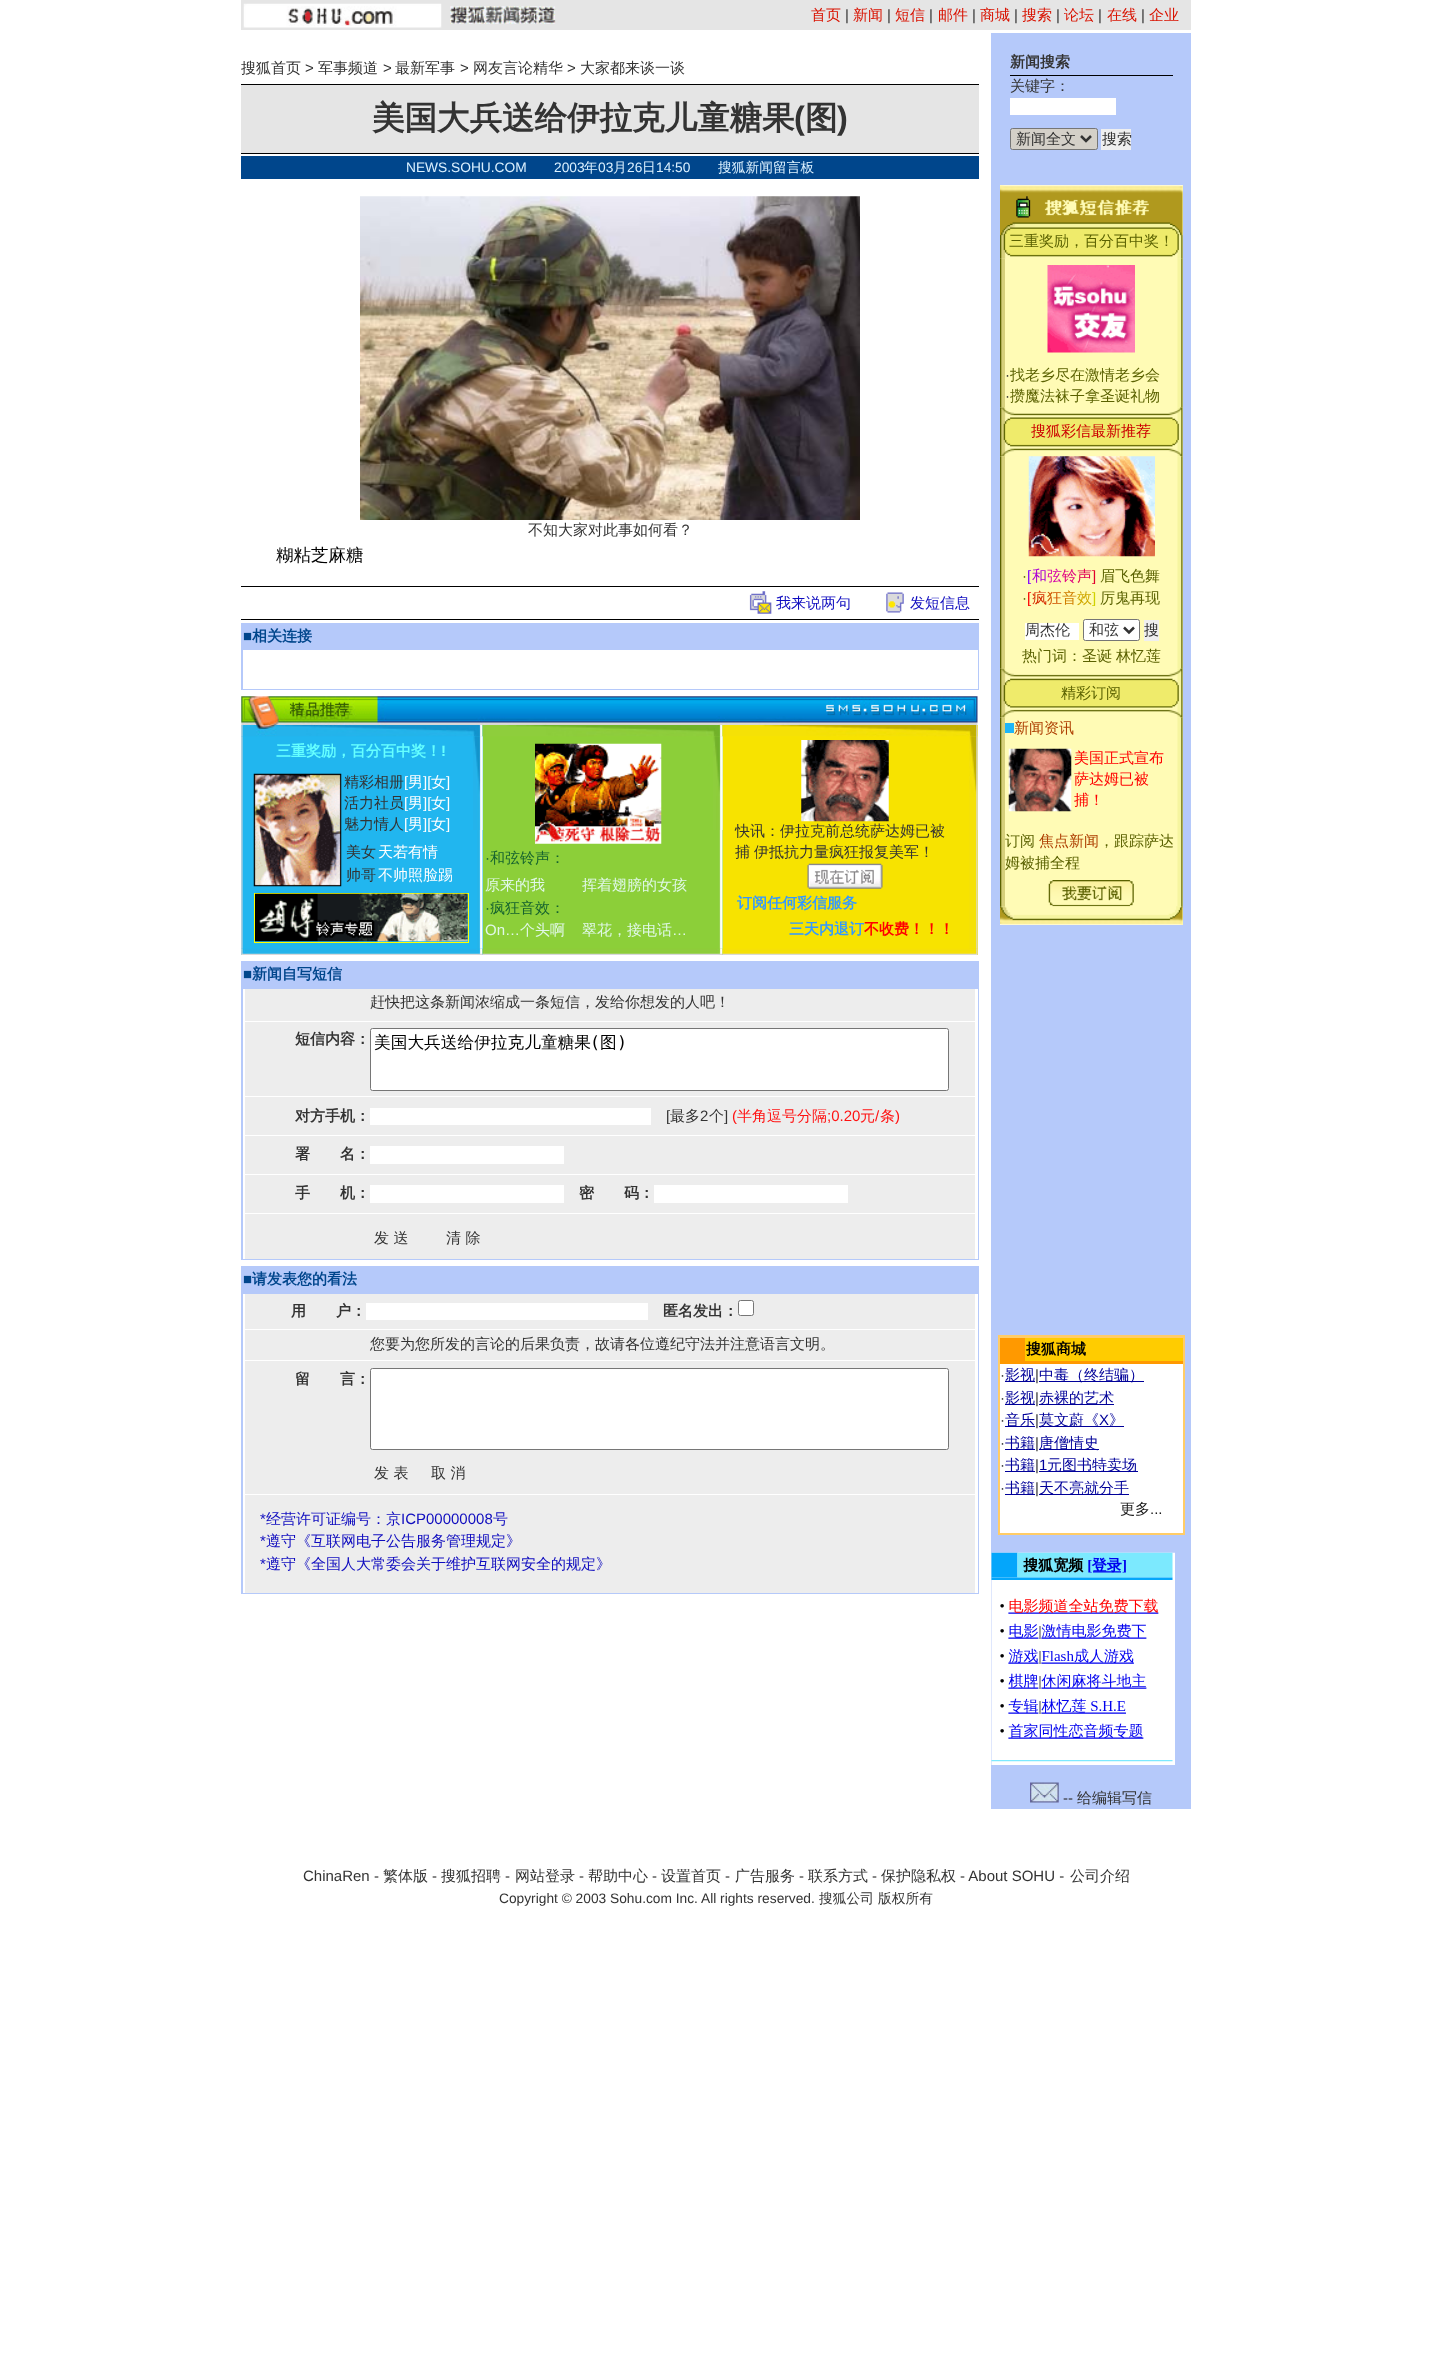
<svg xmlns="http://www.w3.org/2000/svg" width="1432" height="2367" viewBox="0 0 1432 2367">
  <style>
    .t1 { font: 500 15px WenQuanYi Zen Hei; fill: #d91200; }
    .t2 { font: 15px Liberation Sans; fill: #333; }
    .t3 { font: 500 15px WenQuanYi Zen Hei; fill: #333; }
    .t4 { font: bold 32.5px WenQuanYi Zen Hei; fill: #333; }
    .t5 { font: bold 32.5px Liberation Sans; fill: #333; }
    .t6 { font: 13.75px Liberation Sans; fill: #dbf1ff; }
    .t7 { font: 500 13.75px WenQuanYi Zen Hei; fill: #dbf1ff; }
    .t8 { font: 500 17.5px WenQuanYi Zen Hei; fill: #000; }
    .t9 { font: 500 15px WenQuanYi Zen Hei; fill: #0f0cbf; }
    .t10 { font: 15px Liberation Sans; fill: #00468c; }
    .t11 { font: bold 15px WenQuanYi Zen Hei; fill: #00468c; }
    .t12 { font: bold 15px WenQuanYi Zen Hei; fill: #6ff; }
    .t13 { font: bold 15px Liberation Sans; fill: #6ff; }
    .t14 { font: 15px Liberation Sans; fill: #fff; }
    .t15 { font: 500 15px WenQuanYi Zen Hei; fill: #fff; }
    .t16 { font: 15px Liberation Sans; fill: #16632f; }
    .t17 { font: 500 15px WenQuanYi Zen Hei; fill: #16632f; }
    .t18 { font: 500 15px WenQuanYi Zen Hei; fill: #e0f8e8; }
    .t19 { font: 15px Liberation Sans; fill: #e0f8e8; }
    .t20 { font: bold 15px WenQuanYi Zen Hei; fill: #39f; }
    .t21 { font: bold 15px WenQuanYi Zen Hei; fill: #f00; }
    .t22 { font: bold 15px WenQuanYi Zen Hei; fill: #333; }
    .t23 { font: 500 16.7px WenQuanYi Zen Hei; fill: #000; }
    .t24 { font: 16.7px DejaVu Sans Mono; fill: #000; }
    .t25 { font: 15px Liberation Sans; fill: #f11; }
    .t26 { font: 500 15px WenQuanYi Zen Hei; fill: #f11; }
    .t27 { font: 15px Liberation Sans; fill: #0f0cbf; }
    .t28 { font: 500 15px WenQuanYi Zen Hei; fill: #5a6100; }
    .t29 { font: 500 15px WenQuanYi Zen Hei; fill: #c00; }
    .t30 { font: 15px Liberation Sans; fill: #5a6100; }
    .t31 { font: 15px Liberation Sans; fill: #8000ff; }
    .t32 { font: 500 15px WenQuanYi Zen Hei; fill: #aa00d5; }
    .t33 { font: 500 15px WenQuanYi Zen Hei; fill: #d400ab; }
    .t34 { font: 500 15px WenQuanYi Zen Hei; fill: #e00081; }
    .t35 { font: 500 15px WenQuanYi Zen Hei; fill: #e00057; }
    .t36 { font: 15px Liberation Sans; fill: #e0002d; }
    .t37 { font: 15px Liberation Sans; fill: #f00; }
    .t38 { font: 500 15px WenQuanYi Zen Hei; fill: #d52a00; }
    .t39 { font: 500 15px WenQuanYi Zen Hei; fill: #d05400; }
    .t40 { font: 500 15px WenQuanYi Zen Hei; fill: #d07e00; }
    .t41 { font: 500 15px WenQuanYi Zen Hei; fill: #d0a800; }
    .t42 { font: 15px Liberation Sans; fill: #d0d200; }
    .t43 { font: 500 15px WenQuanYi Zen Hei; fill: #ae3f02; }
    .t44 { font: 500 15px WenQuanYi Zen Hei; fill: #f00; }
    .t45 { font: bold 15px WenQuanYi Zen Hei; fill: #000; }
    .t46 { font: 500 15px WenQuanYi Zen Hei; fill: #009; }
    .t47 { font: 15px Liberation Sans; fill: #009; }
    .t48 { font: 500 15px WenQuanYi Zen Hei; fill: #191919; }
    .t49 { font: 15px Liberation Sans; fill: #191919; }
    .t50 { font: 13.75px Liberation Sans; fill: #333; }
    .t51 { font: 500 13.75px WenQuanYi Zen Hei; fill: #333; }
  </style>
  <rect width="100%" height="100%" fill="#fff"/>
  <rect x="241" y="0" width="950" height="30" fill="#e5e5e5"/>
  <image x="243" y="3" width="199" height="25" href="images/1.png"/>
  <image x="450" y="6" width="106" height="18" href="images/2.png"/>
  <text x="811" y="20" class="t1">首页</text>
  <text x="845" y="20" class="t2">|</text>
  <text x="853" y="20" class="t1">新闻</text>
  <text x="887" y="20" class="t2">|</text>
  <text x="895" y="20" class="t1">短信</text>
  <text x="929" y="20" class="t2">|</text>
  <text x="938" y="20" class="t1">邮件</text>
  <text x="972" y="20" class="t2">|</text>
  <text x="980" y="20" class="t1">商城</text>
  <text x="1014" y="20" class="t2">|</text>
  <text x="1022" y="20" class="t1">搜索</text>
  <text x="1056" y="20" class="t2">|</text>
  <text x="1064" y="20" class="t1">论坛</text>
  <text x="1098" y="20" class="t2">|</text>
  <text x="1107" y="20" class="t1">在线</text>
  <text x="1141" y="20" class="t2">|</text>
  <text x="1149" y="20" class="t1">企业</text>
  <text x="241" y="73" class="t3">搜狐首页</text>
  <text x="305" y="73" class="t2">&gt;</text>
  <text x="318" y="73" class="t3">军事频道</text>
  <text x="383" y="73" class="t2">&gt;</text>
  <text x="395" y="73" class="t3">最新军事</text>
  <text x="460" y="73" class="t2">&gt;</text>
  <text x="473" y="73" class="t3">网友言论精华</text>
  <text x="567" y="73" class="t2">&gt;</text>
  <text x="580" y="73" class="t3">大家都来谈一谈</text>
  <rect x="241" y="84" width="738" height="1" fill="#000"/>
  <rect x="241" y="85" width="738" height="68" fill="#e5e5e5"/>
  <text x="372" y="129" class="t4">美国大兵送给伊拉克儿童糖果</text>
  <text x="794" y="129" class="t5">(</text>
  <text x="805" y="129" class="t4">图</text>
  <text x="837" y="129" class="t5">)</text>
  <rect x="241" y="153" width="738" height="1" fill="#000"/>
  <rect x="241" y="156" width="738" height="23" fill="#00468c"/>
  <text x="406" y="172" class="t6">NEWS.SOHU.COM</text>
  <text x="554" y="172" class="t6">2003</text>
  <text x="584" y="172" class="t7">年</text>
  <text x="598" y="172" class="t6">03</text>
  <text x="613" y="172" class="t7">月</text>
  <text x="627" y="172" class="t6">26</text>
  <text x="642" y="172" class="t7">日</text>
  <text x="656" y="172" class="t6">14:50</text>
  <text x="718" y="172" class="t7">搜狐新闻留言板</text>
  <image x="360" y="196" width="500" height="324" href="images/3.png"/>
  <text x="528" y="535" class="t3">不知大家对此事如何看？</text>
  <text x="276" y="561" class="t8">糊粘芝麻糖</text>
  <rect x="241" y="586" width="738" height="1" fill="#000"/>
  <image x="749" y="591" width="23" height="23" href="images/4.png"/>
  <text x="776" y="608" class="t9">我来说两句</text>
  <image x="886" y="592" width="18" height="21" href="images/5.png"/>
  <text x="910" y="608" class="t9">发短信息</text>
  <rect x="241" y="619" width="738" height="1" fill="#000"/>
  <rect x="241" y="623" width="738" height="67" fill="#b5c9fa"/>
  <text x="243" y="641" class="t10">■</text>
  <text x="252" y="641" class="t11">相关连接</text>
  <rect x="243" y="650" width="735" height="39" fill="#fff"/>
  <image x="241" y="696" width="737" height="29" href="images/6.png"/>
  <rect x="241" y="725" width="242" height="230" fill="#21b6ef"/>
  <image x="241" y="736" width="2" height="213" href="images/8.png"/>
  <image x="477" y="736" width="6" height="213" href="images/11.png"/>
  <image x="241" y="725" width="242" height="12" href="images/7.png"/>
  <text x="276" y="756" class="t12">三重奖励，百分百中奖！</text>
  <text x="441" y="756" class="t13">!</text>
  <image x="253" y="773" width="89" height="114" href="images/9.png"/>
  <text x="344" y="787" class="t3">精彩相册</text>
  <text x="404" y="787" class="t14">[</text>
  <text x="408" y="787" class="t15">男</text>
  <text x="423" y="787" class="t14">][</text>
  <text x="431" y="787" class="t15">女</text>
  <text x="446" y="787" class="t14">]</text>
  <text x="344" y="808" class="t3">活力社员</text>
  <text x="404" y="808" class="t14">[</text>
  <text x="408" y="808" class="t15">男</text>
  <text x="423" y="808" class="t14">][</text>
  <text x="431" y="808" class="t15">女</text>
  <text x="446" y="808" class="t14">]</text>
  <text x="344" y="829" class="t3">魅力情人</text>
  <text x="404" y="829" class="t14">[</text>
  <text x="408" y="829" class="t15">男</text>
  <text x="423" y="829" class="t14">][</text>
  <text x="431" y="829" class="t15">女</text>
  <text x="446" y="829" class="t14">]</text>
  <text x="346" y="857" class="t3">美女</text>
  <text x="378" y="857" class="t15">天若有情</text>
  <text x="346" y="880" class="t3">帅哥</text>
  <text x="378" y="880" class="t15">不帅照脸踢</text>
  <rect x="254.5" y="893.5" width="214" height="49" fill="none" stroke="#ff0"/>
  <image x="255" y="893" width="213" height="49" href="images/10.png"/>
  <image x="473" y="736" width="10" height="94" href="images/12.png"/>
  <image x="241" y="948" width="242" height="7" href="images/13.png"/>
  <rect x="483" y="725" width="240" height="230" fill="#8ccf39"/>
  <image x="719" y="736" width="4" height="213" href="images/16.png"/>
  <image x="482" y="725" width="241" height="12" href="images/14.png"/>
  <image x="535" y="743" width="127" height="101" href="images/15.png"/>
  <text x="485" y="863" class="t16">·</text>
  <text x="490" y="863" class="t17">和弦铃声：</text>
  <text x="485" y="890" class="t18">原来的我</text>
  <text x="582" y="890" class="t18">挥着翅膀的女孩</text>
  <text x="485" y="913" class="t16">·</text>
  <text x="490" y="913" class="t17">疯狂音效：</text>
  <text x="485" y="935" class="t19">On…</text>
  <text x="520" y="935" class="t18">个头啊</text>
  <text x="582" y="935" class="t18">翠花，接电话</text>
  <text x="672" y="935" class="t19">…</text>
  <image x="713" y="736" width="10" height="94" href="images/17.png"/>
  <image x="482" y="948" width="241" height="7" href="images/18.png"/>
  <rect x="723" y="725" width="255" height="230" fill="#f7e300"/>
  <image x="969" y="736" width="9" height="213" href="images/22.png"/>
  <image x="722" y="725" width="256" height="12" href="images/19.png"/>
  <image x="801" y="740" width="88" height="82" href="images/20.png"/>
  <text x="735" y="836" class="t3">快讯：伊拉克前总统萨达姆已被</text>
  <text x="735" y="857" class="t3">捕</text>
  <text x="754" y="857" class="t3">伊抵抗力量疯狂报复美军！</text>
  <image x="807" y="863" width="76" height="26" href="images/21.png"/>
  <text x="737" y="908" class="t20">订阅任何彩信服务</text>
  <text x="789" y="934" class="t20">三天内退订</text>
  <text x="864" y="934" class="t21">不收费！！！</text>
  <image x="969" y="736" width="9" height="94" href="images/23.png"/>
  <image x="722" y="948" width="256" height="7" href="images/24.png"/>
  <rect x="241" y="961" width="738" height="299" fill="#b5c9fa"/>
  <text x="243" y="979" class="t10">■</text>
  <text x="252" y="979" class="t11">新闻自写短信</text>
  <rect x="243" y="989" width="735" height="270" fill="#fff"/>
  <rect x="245" y="989" width="730" height="270" fill="#ededed"/>
  <text x="370" y="1007" class="t3">赶快把这条新闻浓缩成一条短信，发给你想发的人吧！</text>
  <rect x="245" y="1021" width="730" height="1" fill="#fff"/>
  <text x="295" y="1044" class="t22">短信内容：</text>
  <rect x="370.5" y="1028.5" width="578" height="62" rx="2" fill="#fff" stroke="#767676"/>
  <text x="374" y="1048" class="t23">美国大兵送给伊拉克儿童糖果</text>
  <text x="590" y="1048" class="t24">(</text>
  <text x="600" y="1048" class="t23">图</text>
  <text x="617" y="1048" class="t24">)</text>
  <rect x="245" y="1096" width="730" height="1" fill="#fff"/>
  <text x="295" y="1121" class="t22">对方手机：</text>
  <rect x="370" y="1108" width="281" height="17" fill="#fff"/>
  <text x="666" y="1121" class="t2">[</text>
  <text x="670" y="1121" class="t3">最多</text>
  <text x="700" y="1121" class="t2">2</text>
  <text x="709" y="1121" class="t3">个</text>
  <text x="724" y="1121" class="t2">]</text>
  <text x="732" y="1121" class="t25">(</text>
  <text x="737" y="1121" class="t26">半角逗号分隔</text>
  <text x="827" y="1121" class="t25">;0.20</text>
  <text x="860" y="1121" class="t26">元</text>
  <text x="875" y="1121" class="t25">/</text>
  <text x="880" y="1121" class="t26">条</text>
  <text x="895" y="1121" class="t25">)</text>
  <rect x="245" y="1135" width="730" height="1" fill="#fff"/>
  <text x="295" y="1159" class="t22">署　　名：</text>
  <rect x="370" y="1146" width="194" height="18" fill="#fff"/>
  <rect x="245" y="1174" width="730" height="1" fill="#fff"/>
  <text x="295" y="1198" class="t22">手　　机：</text>
  <rect x="370" y="1185" width="194" height="18" fill="#fff"/>
  <text x="579" y="1198" class="t22">密　　码：</text>
  <rect x="654" y="1185" width="194" height="18" fill="#fff"/>
  <rect x="245" y="1213" width="730" height="1" fill="#fff"/>
  <text x="374" y="1243" class="t3">发 送</text>
  <text x="446" y="1243" class="t3">清 除</text>
  <rect x="241" y="1266" width="738" height="328" fill="#b5c9fa"/>
  <text x="243" y="1284" class="t10">■</text>
  <text x="252" y="1284" class="t11">请发表您的看法</text>
  <rect x="243" y="1294" width="735" height="299" fill="#fff"/>
  <rect x="245" y="1294" width="730" height="299" fill="#ededed"/>
  <text x="291" y="1316" class="t22">用　　户：</text>
  <rect x="366" y="1303" width="282" height="17" fill="#fff"/>
  <text x="663" y="1316" class="t22">匿名发出：</text>
  <rect x="738.5" y="1300.5" width="15" height="15" rx="2" fill="#fff" stroke="#767676"/>
  <rect x="245" y="1329" width="730" height="1" fill="#fff"/>
  <text x="370" y="1349" class="t3">您要为您所发的言论的后果负责，故请各位遵纪守法并注意语言文明。</text>
  <rect x="245" y="1360" width="730" height="1" fill="#fff"/>
  <text x="295" y="1384" class="t22">留　　言：</text>
  <rect x="370.5" y="1368.5" width="578" height="81" rx="2" fill="#fff" stroke="#767676"/>
  <text x="374" y="1478" class="t3">发 表</text>
  <text x="431" y="1478" class="t3">取 消</text>
  <rect x="245" y="1494" width="730" height="1" fill="#fff"/>
  <text x="260" y="1524" class="t27">*</text>
  <text x="266" y="1524" class="t9">经营许可证编号：京</text>
  <text x="401" y="1524" class="t27">ICP00000008</text>
  <text x="493" y="1524" class="t9">号</text>
  <text x="260" y="1546" class="t27">*</text>
  <text x="266" y="1546" class="t9">遵守《互联网电子公告服务管理规定》</text>
  <text x="260" y="1569" class="t27">*</text>
  <text x="266" y="1569" class="t9">遵守《全国人大常委会关于维护互联网安全的规定》</text>
  <rect x="991" y="33" width="200" height="1776" fill="#b5c9fa"/>
  <text x="1010" y="67" class="t22">新闻搜索</text>
  <rect x="1010" y="75" width="163" height="1" fill="#000"/>
  <text x="1010" y="91" class="t3">关键字：</text>
  <rect x="1010" y="98" width="106" height="17" fill="#fff"/>
  <rect x="1010.5" y="128.5" width="87" height="21" rx="2" fill="#d4d0c8" stroke="#767676"/>
  <path d="M1081 136L1086 141L1091 136" fill="none" stroke="#333" stroke-width="2.5"/>
  <text x="1016" y="144" class="t3">新闻全文</text>
  <rect x="1101" y="129" width="30" height="21" fill="#efefef"/>
  <text x="1102" y="144" class="t3">搜索</text>
  <rect x="1000" y="185" width="183" height="740" fill="#fffbb5"/>
  <image x="1000" y="185" width="183" height="40" href="images/25.png"/>
  <image x="1000" y="225" width="183" height="34" href="images/26.png"/>
  <text x="1009" y="246" class="t28">三重奖励，百分百中奖！</text>
  <image x="1000" y="258" width="5" height="150" href="images/27.png"/>
  <image x="1047" y="265" width="88" height="88" href="images/28.png"/>
  <text x="1005" y="380" class="t2">·</text>
  <text x="1010" y="380" class="t28">找老乡尽在激情老乡会</text>
  <text x="1005" y="401" class="t2">·</text>
  <text x="1010" y="401" class="t28">攒魔法袜子拿圣诞礼物</text>
  <image x="1177" y="258" width="6" height="150" href="images/29.png"/>
  <image x="1000" y="407" width="183" height="50" href="images/30.png"/>
  <text x="1031" y="436" class="t29">搜狐彩信最新推荐</text>
  <image x="1000" y="456" width="5" height="213" href="images/31.png"/>
  <image x="1028" y="456" width="127" height="101" href="images/32.png"/>
  <text x="1022" y="581" class="t30">·</text>
  <text x="1027" y="581" class="t31">[</text>
  <text x="1032" y="581" class="t32">和</text>
  <text x="1047" y="581" class="t33">弦</text>
  <text x="1062" y="581" class="t34">铃</text>
  <text x="1077" y="581" class="t35">声</text>
  <text x="1092" y="581" class="t36">]</text>
  <text x="1100" y="581" class="t28">眉飞色舞</text>
  <text x="1022" y="603" class="t30">·</text>
  <text x="1027" y="603" class="t37">[</text>
  <text x="1032" y="603" class="t38">疯</text>
  <text x="1047" y="603" class="t39">狂</text>
  <text x="1062" y="603" class="t40">音</text>
  <text x="1077" y="603" class="t41">效</text>
  <text x="1092" y="603" class="t42">]</text>
  <text x="1100" y="603" class="t28">厉鬼再现</text>
  <rect x="1025" y="623" width="54" height="17" fill="#fff"/>
  <text x="1025" y="635" class="t3">周杰伦</text>
  <rect x="1083.5" y="619.5" width="56" height="21" rx="2" fill="#fff" stroke="#767676"/>
  <path d="M1124 627.5L1129 632.5L1134 627.5" fill="none" stroke="#333" stroke-width="2.5"/>
  <text x="1089" y="635" class="t3">和弦</text>
  <rect x="1144" y="620" width="15" height="21" fill="#efefef"/>
  <text x="1144" y="635" class="t3">搜</text>
  <text x="1022" y="661" class="t28">热门词：圣诞</text>
  <text x="1116" y="661" class="t28">林忆莲</text>
  <image x="1177" y="456" width="6" height="213" href="images/33.png"/>
  <image x="1000" y="668" width="183" height="50" href="images/34.png"/>
  <text x="1061" y="698" class="t28">精彩订阅</text>
  <image x="1000" y="717" width="5" height="190" href="images/35.png"/>
  <rect x="1005" y="723" width="9" height="10" fill="#1eb6f8"/>
  <text x="1014" y="733" class="t43">新闻资讯</text>
  <image x="1008" y="748" width="64" height="64" href="images/36.png"/>
  <text x="1074" y="763" class="t44">美国正式宣布</text>
  <text x="1074" y="784" class="t44">萨达姆已被</text>
  <text x="1074" y="805" class="t44">捕！</text>
  <text x="1005" y="846" class="t28">订阅</text>
  <text x="1039" y="846" class="t43">焦点新闻</text>
  <text x="1099" y="846" class="t28">，跟踪萨达</text>
  <text x="1005" y="868" class="t28">姆被捕全程</text>
  <image x="1048" y="880" width="86" height="27" href="images/37.png"/>
  <image x="1177" y="717" width="6" height="190" href="images/38.png"/>
  <image x="1000" y="906" width="183" height="19" href="images/39.png"/>
  <rect x="998" y="1335" width="187" height="200" fill="#fc6"/>
  <rect x="1000" y="1364" width="183" height="169" fill="#fff"/>
  <rect x="1025" y="1338" width="158" height="23" fill="#fc0"/>
  <rect x="1000" y="1338" width="25" height="26" fill="#f90"/>
  <text x="1026" y="1354" class="t45">搜狐商城</text>
  <rect x="1025" y="1361" width="158" height="3" fill="#f90"/>
  <text x="1000" y="1380" class="t2">·</text>
  <rect x="1005" y="1381" width="30" height="1" fill="#009"/>
  <text x="1005" y="1380" class="t46">影视</text>
  <text x="1035" y="1380" class="t2">|</text>
  <rect x="1039" y="1381" width="105" height="1" fill="#009"/>
  <text x="1039" y="1380" class="t46">中毒（终结骗）</text>
  <text x="1000" y="1403" class="t2">·</text>
  <rect x="1005" y="1404" width="30" height="1" fill="#009"/>
  <text x="1005" y="1403" class="t46">影视</text>
  <text x="1035" y="1403" class="t2">|</text>
  <rect x="1039" y="1404" width="75" height="1" fill="#009"/>
  <text x="1039" y="1403" class="t46">赤裸的艺术</text>
  <text x="1000" y="1425" class="t2">·</text>
  <rect x="1005" y="1426" width="30" height="1" fill="#009"/>
  <text x="1005" y="1425" class="t46">音乐</text>
  <text x="1035" y="1425" class="t2">|</text>
  <rect x="1039" y="1426" width="85" height="1" fill="#009"/>
  <text x="1039" y="1425" class="t46">莫文蔚《</text>
  <text x="1099" y="1425" class="t47">X</text>
  <text x="1109" y="1425" class="t46">》</text>
  <text x="1000" y="1448" class="t2">·</text>
  <rect x="1005" y="1449" width="30" height="1" fill="#009"/>
  <text x="1005" y="1448" class="t46">书籍</text>
  <text x="1035" y="1448" class="t2">|</text>
  <rect x="1039" y="1449" width="60" height="1" fill="#009"/>
  <text x="1039" y="1448" class="t46">唐僧情史</text>
  <text x="1000" y="1470" class="t2">·</text>
  <rect x="1005" y="1471" width="30" height="1" fill="#009"/>
  <text x="1005" y="1470" class="t46">书籍</text>
  <text x="1035" y="1470" class="t2">|</text>
  <text x="1039" y="1470" class="t47">1</text>
  <rect x="1039" y="1471" width="99" height="1" fill="#009"/>
  <text x="1047" y="1470" class="t46">元图书特卖场</text>
  <text x="1000" y="1493" class="t2">·</text>
  <rect x="1005" y="1494" width="30" height="1" fill="#009"/>
  <text x="1005" y="1493" class="t46">书籍</text>
  <text x="1035" y="1493" class="t2">|</text>
  <rect x="1039" y="1494" width="90" height="1" fill="#009"/>
  <text x="1039" y="1493" class="t46">天不亮就分手</text>
  <text x="1120" y="1514" class="t48">更多</text>
  <text x="1150" y="1514" class="t49">...</text>
  <image x="991" y="1552" width="184" height="213" href="images/40.png"/>
  <image x="1030" y="1782" width="29" height="21" href="images/41.png"/>
  <text x="1063" y="1803" class="t2">--</text>
  <text x="1077" y="1803" class="t3">给编辑写信</text>
  <text x="303" y="1881" class="t2">ChinaRen -</text>
  <text x="383" y="1881" class="t3">繁体版</text>
  <text x="432" y="1881" class="t2">-</text>
  <text x="441" y="1881" class="t3">搜狐招聘</text>
  <text x="505" y="1881" class="t2">-</text>
  <text x="515" y="1881" class="t3">网站登录</text>
  <text x="579" y="1881" class="t2">-</text>
  <text x="588" y="1881" class="t3">帮助中心</text>
  <text x="652" y="1881" class="t2">-</text>
  <text x="661" y="1881" class="t3">设置首页</text>
  <text x="725" y="1881" class="t2">-</text>
  <text x="735" y="1881" class="t3">广告服务</text>
  <text x="799" y="1881" class="t2">-</text>
  <text x="808" y="1881" class="t3">联系方式</text>
  <text x="872" y="1881" class="t2">-</text>
  <text x="881" y="1881" class="t3">保护隐私权</text>
  <text x="960" y="1881" class="t2">- About SOHU -</text>
  <text x="1070" y="1881" class="t3">公司介绍</text>
  <text x="499" y="1903" class="t50">Copyright © 2003 Sohu.com Inc. All rights reserved.</text>
  <text x="819" y="1903" class="t51">搜狐公司 版权所有</text>
</svg>
